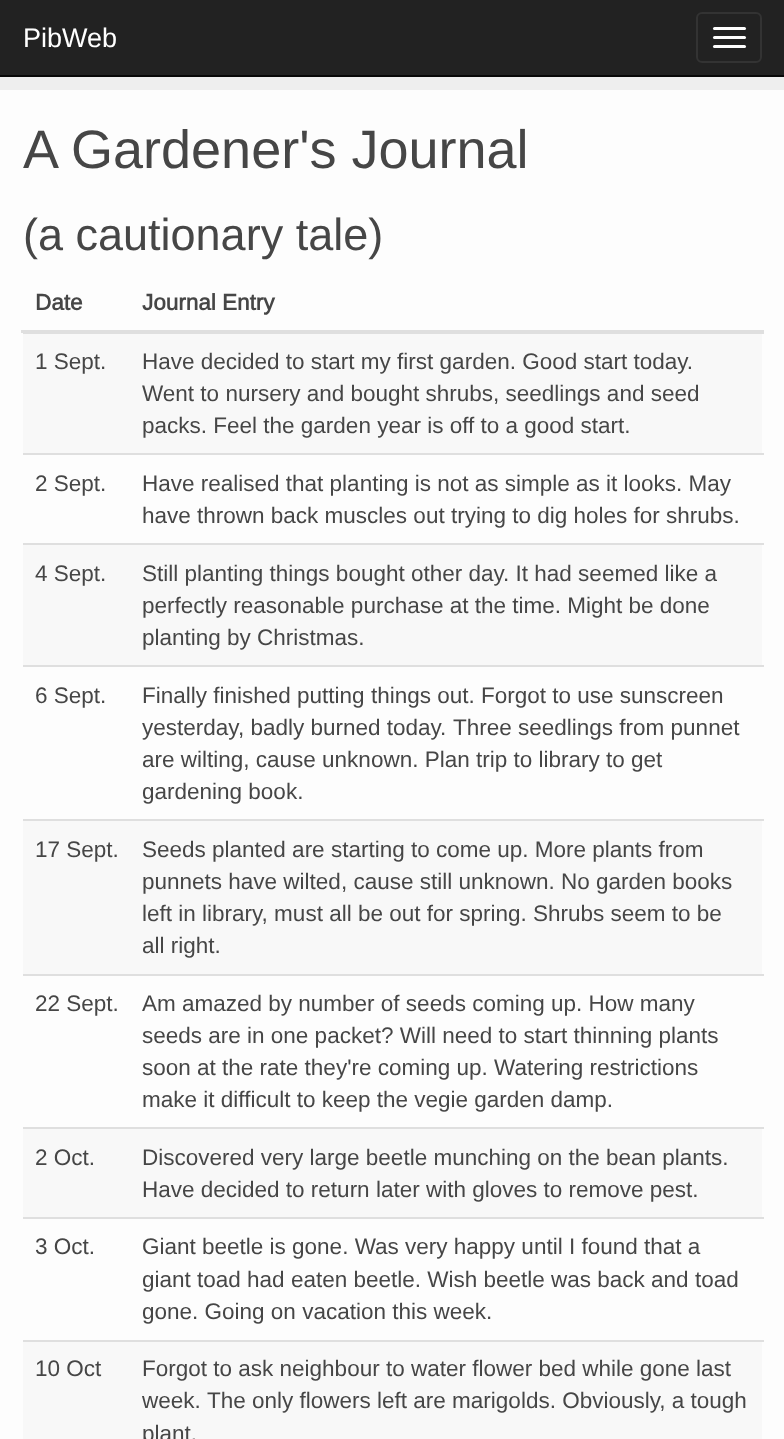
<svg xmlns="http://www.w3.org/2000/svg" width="784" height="1439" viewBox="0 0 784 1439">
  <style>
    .t1 { font: 27px Arimo; fill: #fff; }
    .t2 { font: 54px Arimo; fill: #464646; }
    .t3 { font: 45px Arimo; fill: #464646; }
    .t4 { font: bold 22.5px Arimo; fill: #464646; }
    .t5 { font: 22.5px Arimo; fill: #464646; }
  </style>
  <rect width="100%" height="100%" fill="#eee"/>
  <rect x="0" y="0" width="784" height="75" fill="#222"/>
  <rect x="0" y="75" width="784" height="2" fill="#080808"/>
  <text x="23" y="47" class="t1">PibWeb</text>
  <rect x="697" y="13" width="64" height="49" rx="5" fill="none" stroke="#333" stroke-width="2"/>
  <rect x="713" y="27" width="33" height="3" rx="1.5" fill="#fff"/>
  <rect x="713" y="36" width="33" height="3" rx="1.5" fill="#fff"/>
  <rect x="713" y="45" width="33" height="3" rx="1.5" fill="#fff"/>
  <rect x="0" y="90" width="784" height="1349" fill="#fdfdfd"/>
  <text x="23" y="168" class="t2">A Gardener's Journal</text>
  <text x="23" y="250" class="t3">(a cautionary tale)</text>
  <text x="35" y="310" class="t4">Date</text>
  <rect x="21" y="330" width="743" height="3" fill="#dfdfdf"/>
  <text x="142" y="310" class="t4">Journal Entry</text>
  <rect x="23" y="334" width="739" height="119" fill="#f8f8f8"/>
  <text x="35" y="369" class="t5">1 Sept.</text>
  <rect x="23" y="333" width="741" height="1" fill="#dfdfdf"/>
  <text x="142" y="369" class="t5">Have decided to start my first garden. Good start today.</text>
  <text x="142" y="401" class="t5">Went to nursery and bought shrubs, seedlings and seed</text>
  <text x="142" y="433" class="t5">packs. Feel the garden year is off to a good start.</text>
  <text x="35" y="491" class="t5">2 Sept.</text>
  <rect x="23" y="453" width="741" height="2" fill="#dfdfdf"/>
  <text x="142" y="491" class="t5">Have realised that planting is not as simple as it looks. May</text>
  <text x="142" y="523" class="t5">have thrown back muscles out trying to dig holes for shrubs.</text>
  <rect x="23" y="545" width="739" height="120" fill="#f8f8f8"/>
  <text x="35" y="581" class="t5">4 Sept.</text>
  <rect x="23" y="543" width="741" height="2" fill="#dfdfdf"/>
  <text x="142" y="581" class="t5">Still planting things bought other day. It had seemed like a</text>
  <text x="142" y="613" class="t5">perfectly reasonable purchase at the time. Might be done</text>
  <text x="142" y="645" class="t5">planting by Christmas.</text>
  <text x="35" y="703" class="t5">6 Sept.</text>
  <rect x="23" y="665" width="741" height="2" fill="#dfdfdf"/>
  <text x="142" y="703" class="t5">Finally finished putting things out. Forgot to use sunscreen</text>
  <text x="142" y="735" class="t5">yesterday, badly burned today.</text>
  <text x="453" y="735" class="t5">Three seedlings from punnet</text>
  <text x="142" y="767" class="t5">are wilting, cause unknown. Plan trip to library to get</text>
  <text x="142" y="799" class="t5">gardening book.</text>
  <rect x="23" y="821" width="739" height="153" fill="#f8f8f8"/>
  <text x="35" y="857" class="t5">17 Sept.</text>
  <rect x="23" y="819" width="741" height="2" fill="#dfdfdf"/>
  <text x="142" y="857" class="t5">Seeds planted are starting to come up. More plants from</text>
  <text x="142" y="889" class="t5">punnets have wilted, cause still unknown. No garden books</text>
  <text x="142" y="921" class="t5">left in library, must all be out for spring. Shrubs seem to be</text>
  <text x="142" y="953" class="t5">all right.</text>
  <text x="35" y="1011" class="t5">22 Sept.</text>
  <rect x="23" y="974" width="741" height="2" fill="#dfdfdf"/>
  <text x="142" y="1011" class="t5">Am amazed by number of seeds coming up. How many</text>
  <text x="142" y="1043" class="t5">seeds are in one packet? Will need to start thinning plants</text>
  <text x="142" y="1075" class="t5">soon at the rate they're coming up. Watering restrictions</text>
  <text x="142" y="1107" class="t5">make it difficult to keep the vegie garden damp.</text>
  <rect x="23" y="1129" width="739" height="88" fill="#f8f8f8"/>
  <text x="35" y="1165" class="t5">2 Oct.</text>
  <rect x="23" y="1127" width="741" height="2" fill="#dfdfdf"/>
  <text x="142" y="1165" class="t5">Discovered very large beetle munching on the bean plants.</text>
  <text x="142" y="1197" class="t5">Have decided to return later with gloves to remove pest.</text>
  <text x="35" y="1254" class="t5">3 Oct.</text>
  <rect x="23" y="1217" width="741" height="2" fill="#dfdfdf"/>
  <text x="142" y="1254" class="t5">Giant beetle is gone. Was very happy until I found that a</text>
  <text x="142" y="1287" class="t5">giant toad had eaten beetle. Wish beetle was back and toad</text>
  <text x="142" y="1319" class="t5">gone. Going on vacation this week.</text>
  <rect x="23" y="1342" width="739" height="97" fill="#f8f8f8"/>
  <text x="35" y="1376" class="t5">10 Oct</text>
  <rect x="23" y="1340" width="741" height="2" fill="#dfdfdf"/>
  <text x="142" y="1376" class="t5">Forgot to ask neighbour to water flower bed while gone last</text>
  <text x="142" y="1408" class="t5">week.</text>
  <text x="207" y="1408" class="t5">The only flowers left are marigolds. Obviously, a tough</text>
  <text x="142" y="1441" class="t5">plant.</text>
</svg>
